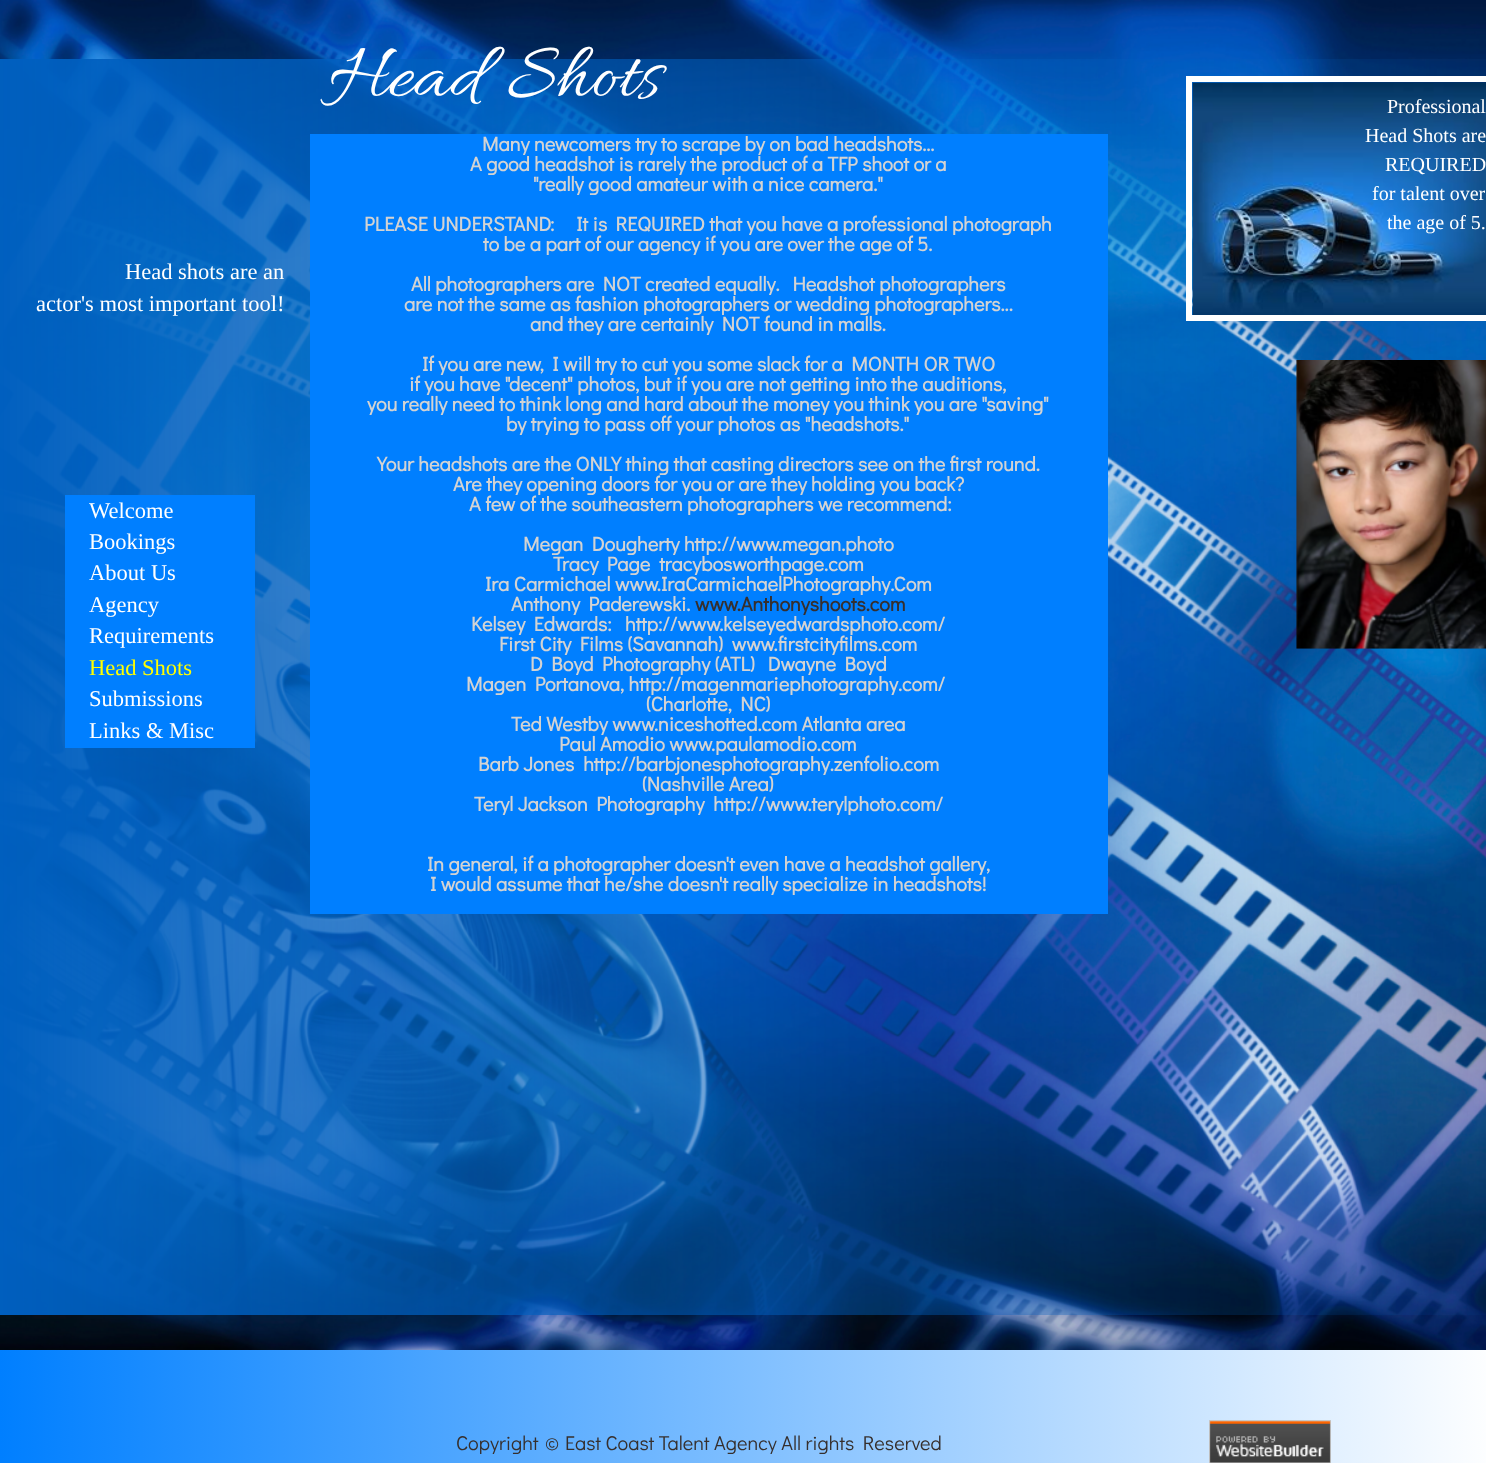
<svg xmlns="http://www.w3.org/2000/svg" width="1486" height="1463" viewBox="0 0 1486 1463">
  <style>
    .t1 { font: 80px Allura; fill: #fff; }
    .t2 { font: 22.5px Liberation Serif; fill: #fff; }
    .t3 { font: bold 20px Didact Gothic; fill: #d3d3d3; }
    .t4 { font: bold 20px Didact Gothic; fill: #362f2d; }
    .t5 { font: 20px Liberation Serif; fill: #fff; }
    .t6 { font: 22.5px Liberation Serif; fill: #ff0; }
    .t7 { font: 20px Didact Gothic; fill: #362f2d; }
  </style>
  <rect width="100%" height="100%" fill="#fff"/>
  <image x="0" y="0" width="1486" height="1463" href="images/1.png"/>
  <text x="328" y="95" class="t1">Head Shots</text>
  <rect x="1189" y="79" width="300" height="239" fill="none" stroke="#fff" stroke-width="6"/>
  <image x="1192" y="82" width="294" height="233" href="images/2.png"/>
  <text x="125" y="279" class="t2">Head shots are an</text>
  <text x="36" y="311" class="t2">actor's most important tool!</text>
  <rect x="310" y="134" width="798" height="780" fill="#007fff"/>
  <text x="482" y="151" class="t3">Many newcomers try to scrape by on bad headshots...</text>
  <text x="470" y="171" class="t3">A good headshot is rarely the product of a TFP shoot or a</text>
  <text x="533" y="191" class="t3">"really good amateur with a nice camera."</text>
  <text x="364" y="231" class="t3" xml:space="preserve">PLEASE UNDERSTAND:    It is REQUIRED that you have a professional photograph</text>
  <text x="483" y="251" class="t3">to be a part of our agency if you are over the age of 5.</text>
  <text x="411" y="291" class="t3" xml:space="preserve">All photographers are NOT created equally.  Headshot photographers</text>
  <text x="404" y="311" class="t3">are not the same as fashion photographers or wedding photographers...</text>
  <text x="530" y="331" class="t3">and they are certainly NOT found in malls.</text>
  <text x="422" y="371" class="t3">If you are new, I will try to cut you some slack for a MONTH OR TWO</text>
  <text x="409" y="391" class="t3">if you have "decent" photos, but if you are not getting into the auditions,</text>
  <text x="367" y="411" class="t3">you really need to think long and hard about the money you think you are "saving"</text>
  <text x="506" y="431" class="t3">by trying to pass off your photos as "headshots."</text>
  <text x="377" y="471" class="t3">Your headshots are the ONLY thing that casting directors see on the first round.</text>
  <text x="453" y="491" class="t3">Are they opening doors for you or are they holding you back?</text>
  <text x="469" y="511" class="t3">A few of the southeastern photographers we recommend:</text>
  <text x="523" y="551" class="t3">Megan Dougherty http://www.megan.photo</text>
  <text x="553" y="571" class="t3" xml:space="preserve">Tracy Page  tracybosworthpage.com</text>
  <text x="485" y="591" class="t3">Ira Carmichael www.IraCarmichaelPhotography.Com</text>
  <text x="511" y="611" class="t3">Anthony Paderewski.</text>
  <text x="695" y="611" class="t4">www.Anthonyshoots.com</text>
  <text x="471" y="631" class="t3" xml:space="preserve">Kelsey Edwards:   http://www.kelseyedwardsphoto.com/</text>
  <text x="499" y="651" class="t3" xml:space="preserve">First City Films (Savannah)  www.firstcityfilms.com</text>
  <text x="530" y="671" class="t3" xml:space="preserve">D Boyd Photography (ATL)  Dwayne Boyd</text>
  <text x="466" y="691" class="t3">Magen Portanova, http://magenmariephotography.com/</text>
  <text x="646" y="711" class="t3">(Charlotte, NC)</text>
  <text x="511" y="731" class="t3">Ted Westby www.niceshotted.com Atlanta area</text>
  <text x="559" y="751" class="t3">Paul Amodio www.paulamodio.com</text>
  <text x="478" y="771" class="t3" xml:space="preserve">Barb Jones  http://barbjonesphotography.zenfolio.com</text>
  <text x="642" y="791" class="t3">(Nashville Area)</text>
  <text x="474" y="811" class="t3" xml:space="preserve">Teryl Jackson Photography  http://www.terylphoto.com/</text>
  <text x="427" y="871" class="t3">In general, if a photographer doesn't even have a headshot gallery,</text>
  <text x="430" y="891" class="t3">I would assume that he/she doesn't really specialize in headshots!</text>
  <text x="1387" y="113" class="t5">Professional</text>
  <text x="1365" y="142" class="t5">Head Shots are</text>
  <text x="1385" y="171" class="t5">REQUIRED</text>
  <text x="1372" y="200" class="t5">for talent over</text>
  <text x="1387" y="229" class="t5">the age of 5.</text>
  <rect x="65" y="495" width="190" height="253" fill="#007fff"/>
  <text x="89" y="518" class="t2">Welcome</text>
  <text x="89" y="549" class="t2">Bookings</text>
  <text x="89" y="580" class="t2">About Us</text>
  <text x="89" y="612" class="t2">Agency</text>
  <text x="89" y="643" class="t2">Requirements</text>
  <text x="89" y="675" class="t6">Head Shots</text>
  <text x="89" y="706" class="t2">Submissions</text>
  <text x="89" y="738" class="t2">Links &amp; Misc</text>
  <image x="1296" y="360" width="190" height="289" href="images/3.png"/>
  <text x="456" y="1450" word-spacing="2" class="t7">Copyright ©</text>
  <text x="565" y="1450" class="t7">East Coast Talent Agency All rights Reserved</text>
  <image x="1209" y="1420" width="122" height="43" href="images/4.png"/>
</svg>
